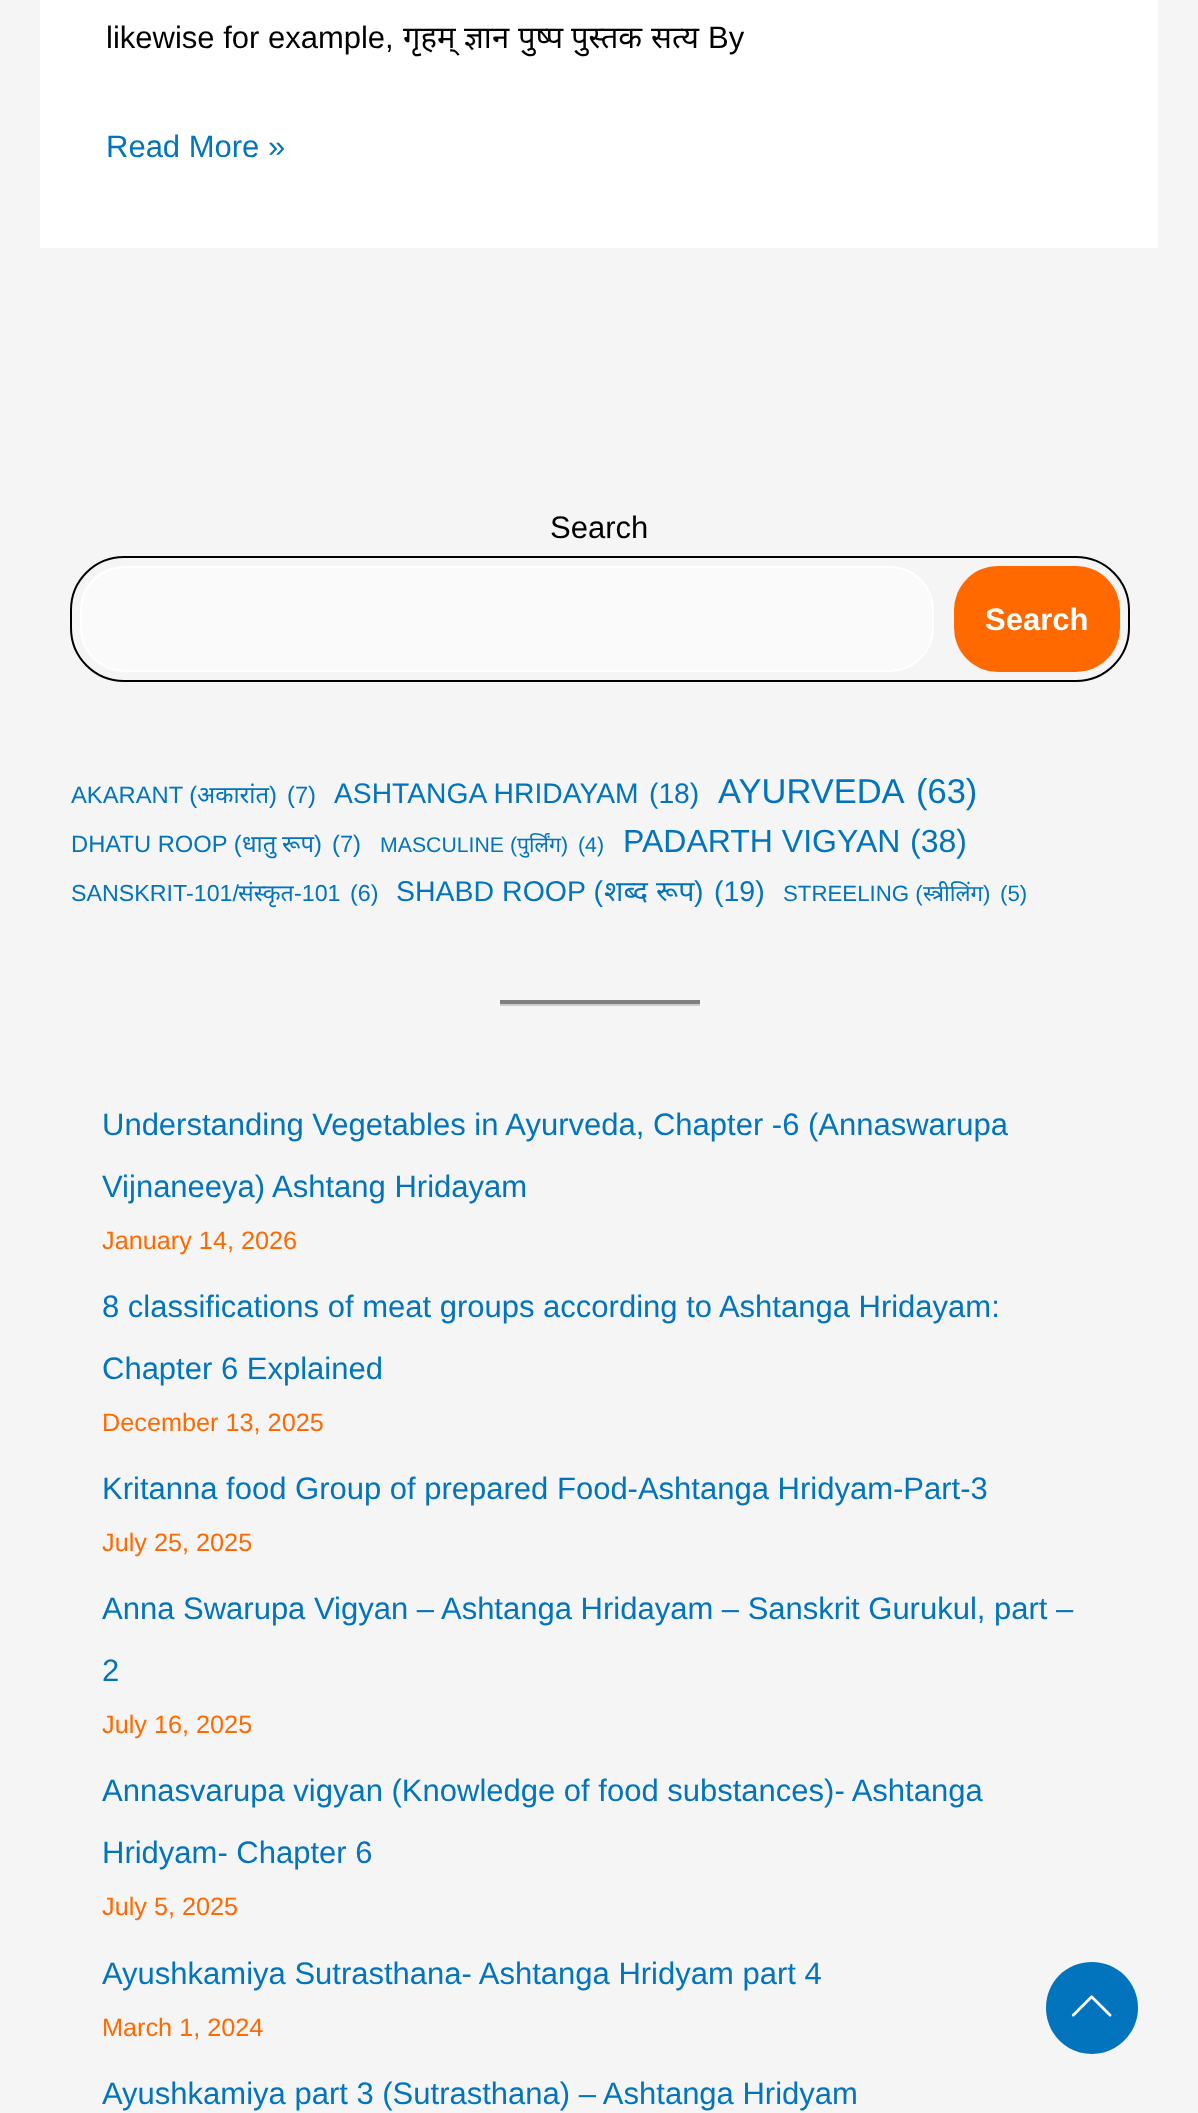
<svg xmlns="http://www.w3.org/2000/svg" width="1198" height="2113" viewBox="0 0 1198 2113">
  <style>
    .t1 { font: 31px Liberation Sans; fill: #000; }
    .t2 { font: 31px Noto Sans; fill: #000; }
    .t3 { font: 31px Liberation Sans; fill: #0274be; }
    .t4 { font: bold 31px Liberation Sans; fill: #fff; }
    .t5 { font: 23.75px Liberation Sans; fill: #0274be; }
    .t6 { font: 23.75px Noto Sans; fill: #0274be; }
    .t7 { font: 28.25px Liberation Sans; fill: #0274be; }
    .t8 { font: 34.5px Liberation Sans; fill: #0274be; }
    .t9 { font: 21.25px Liberation Sans; fill: #0274be; }
    .t10 { font: 21.25px Noto Sans; fill: #0274be; }
    .t11 { font: 32px Liberation Sans; fill: #0274be; }
    .t12 { font: 23.25px Liberation Sans; fill: #0274be; }
    .t13 { font: 23.25px Noto Sans; fill: #0274be; }
    .t14 { font: 28.5px Liberation Sans; fill: #0274be; }
    .t15 { font: 28.5px Noto Sans; fill: #0274be; }
    .t16 { font: 22.25px Liberation Sans; fill: #0274be; }
    .t17 { font: 22.25px Noto Sans; fill: #0274be; }
    .t18 { font: 25.25px Liberation Sans; fill: #ff6900; }
  </style>
  <rect width="100%" height="100%" fill="#f5f5f5"/>
  <rect x="40" y="0" width="1118" height="248" fill="#fff"/>
  <text x="106" y="48" class="t1">likewise for example,</text>
  <text x="403" y="48" class="t2">गृहम्</text>
  <text x="464" y="48" class="t2">ज्ञान</text>
  <text x="518" y="48" class="t2">पुष्प</text>
  <text x="571" y="48" class="t2">पुस्तक</text>
  <text x="651" y="48" class="t2">सत्य</text>
  <text x="708" y="48" class="t1">By</text>
  <text x="106" y="157" class="t3">Read More »</text>
  <text x="550" y="538" class="t1">Search</text>
  <rect x="81" y="567" width="852" height="104" rx="43" fill="#fafafa" stroke="#fff" stroke-width="2"/>
  <rect x="954" y="566" width="166" height="106" rx="44" fill="#ff6900"/>
  <rect x="71" y="557" width="1058" height="124" rx="53" fill="none" stroke="#000" stroke-width="2"/>
  <text x="985" y="630" class="t4">Search</text>
  <text x="71" y="803" class="t5">AKARANT (</text>
  <text x="197" y="803" class="t6">अकारांत</text>
  <text x="269" y="803" class="t5">)</text>
  <text x="287" y="803" class="t5">(7)</text>
  <text x="334" y="803" class="t7">ASHTANGA HRIDAYAM</text>
  <text x="649" y="803" class="t7">(18)</text>
  <text x="718" y="803" class="t8">AYURVEDA</text>
  <text x="916" y="803" class="t8">(63)</text>
  <text x="71" y="852" class="t5">DHATU ROOP (</text>
  <text x="242" y="852" class="t6">धातु</text>
  <text x="282" y="852" class="t6">रूप</text>
  <text x="314" y="852" class="t5">)</text>
  <text x="332" y="852" class="t5">(7)</text>
  <text x="380" y="852" class="t9">MASCULINE (</text>
  <text x="517" y="852" class="t10">पुर्लिंग</text>
  <text x="561" y="852" class="t9">)</text>
  <text x="578" y="852" class="t9">(4)</text>
  <text x="623" y="852" class="t11">PADARTH VIGYAN</text>
  <text x="910" y="852" class="t11">(38)</text>
  <text x="71" y="901" class="t12">SANSKRIT-101/</text>
  <text x="238" y="901" class="t13">संस्कृत</text>
  <text x="294" y="901" class="t12">-101</text>
  <text x="350" y="901" class="t12">(6)</text>
  <text x="396" y="901" class="t14">SHABD ROOP (</text>
  <text x="604" y="901" class="t15">शब्द</text>
  <text x="656" y="901" class="t15">रूप</text>
  <text x="694" y="901" class="t14">)</text>
  <text x="714" y="901" class="t14">(19)</text>
  <text x="783" y="901" class="t16">STREELING (</text>
  <text x="923" y="901" class="t17">स्त्रीलिंग</text>
  <text x="983" y="901" class="t16">)</text>
  <text x="1000" y="901" class="t16">(5)</text>
  <rect x="500" y="1004" width="200" height="2" fill="#ccc"/>
  <rect x="500" y="1000" width="200" height="4" fill="#808080"/>
  <text x="102" y="1135" class="t3">Understanding Vegetables in Ayurveda, Chapter -6 (Annaswarupa</text>
  <text x="102" y="1197" class="t3">Vijnaneeya) Ashtang Hridayam</text>
  <text x="102" y="1249" class="t18">January 14, 2026</text>
  <text x="102" y="1317" class="t3">8 classifications of meat groups according to Ashtanga Hridayam:</text>
  <text x="102" y="1379" class="t3">Chapter 6 Explained</text>
  <text x="102" y="1431" class="t18">December 13, 2025</text>
  <text x="102" y="1499" class="t3">Kritanna food Group of prepared Food-Ashtanga Hridyam-Part-3</text>
  <text x="102" y="1551" class="t18">July 25, 2025</text>
  <text x="102" y="1619" class="t3">Anna Swarupa Vigyan – Ashtanga Hridayam – Sanskrit Gurukul, part –</text>
  <text x="102" y="1681" class="t3">2</text>
  <text x="102" y="1733" class="t18">July 16, 2025</text>
  <text x="102" y="1801" class="t3">Annasvarupa vigyan (Knowledge of food substances)- Ashtanga</text>
  <text x="102" y="1863" class="t3">Hridyam- Chapter 6</text>
  <text x="102" y="1915" class="t18">July 5, 2025</text>
  <text x="102" y="1984" class="t3">Ayushkamiya Sutrasthana- Ashtanga Hridyam part 4</text>
  <text x="102" y="2036" class="t18">March 1, 2024</text>
  <text x="102" y="2104" class="t3">Ayushkamiya part 3 (Sutrasthana) – Ashtanga Hridyam</text>
  <path d="M1092 2054C1066 2054 1046 2033 1046 2008C1046 1982 1066 1962 1092 1962C1117 1962 1138 1982 1138 2008C1138 2033 1117 2054 1092 2054Z" fill="#0274be"/>
  <image x="1071" y="1995" width="41" height="22" href="images/1.png"/>
</svg>
